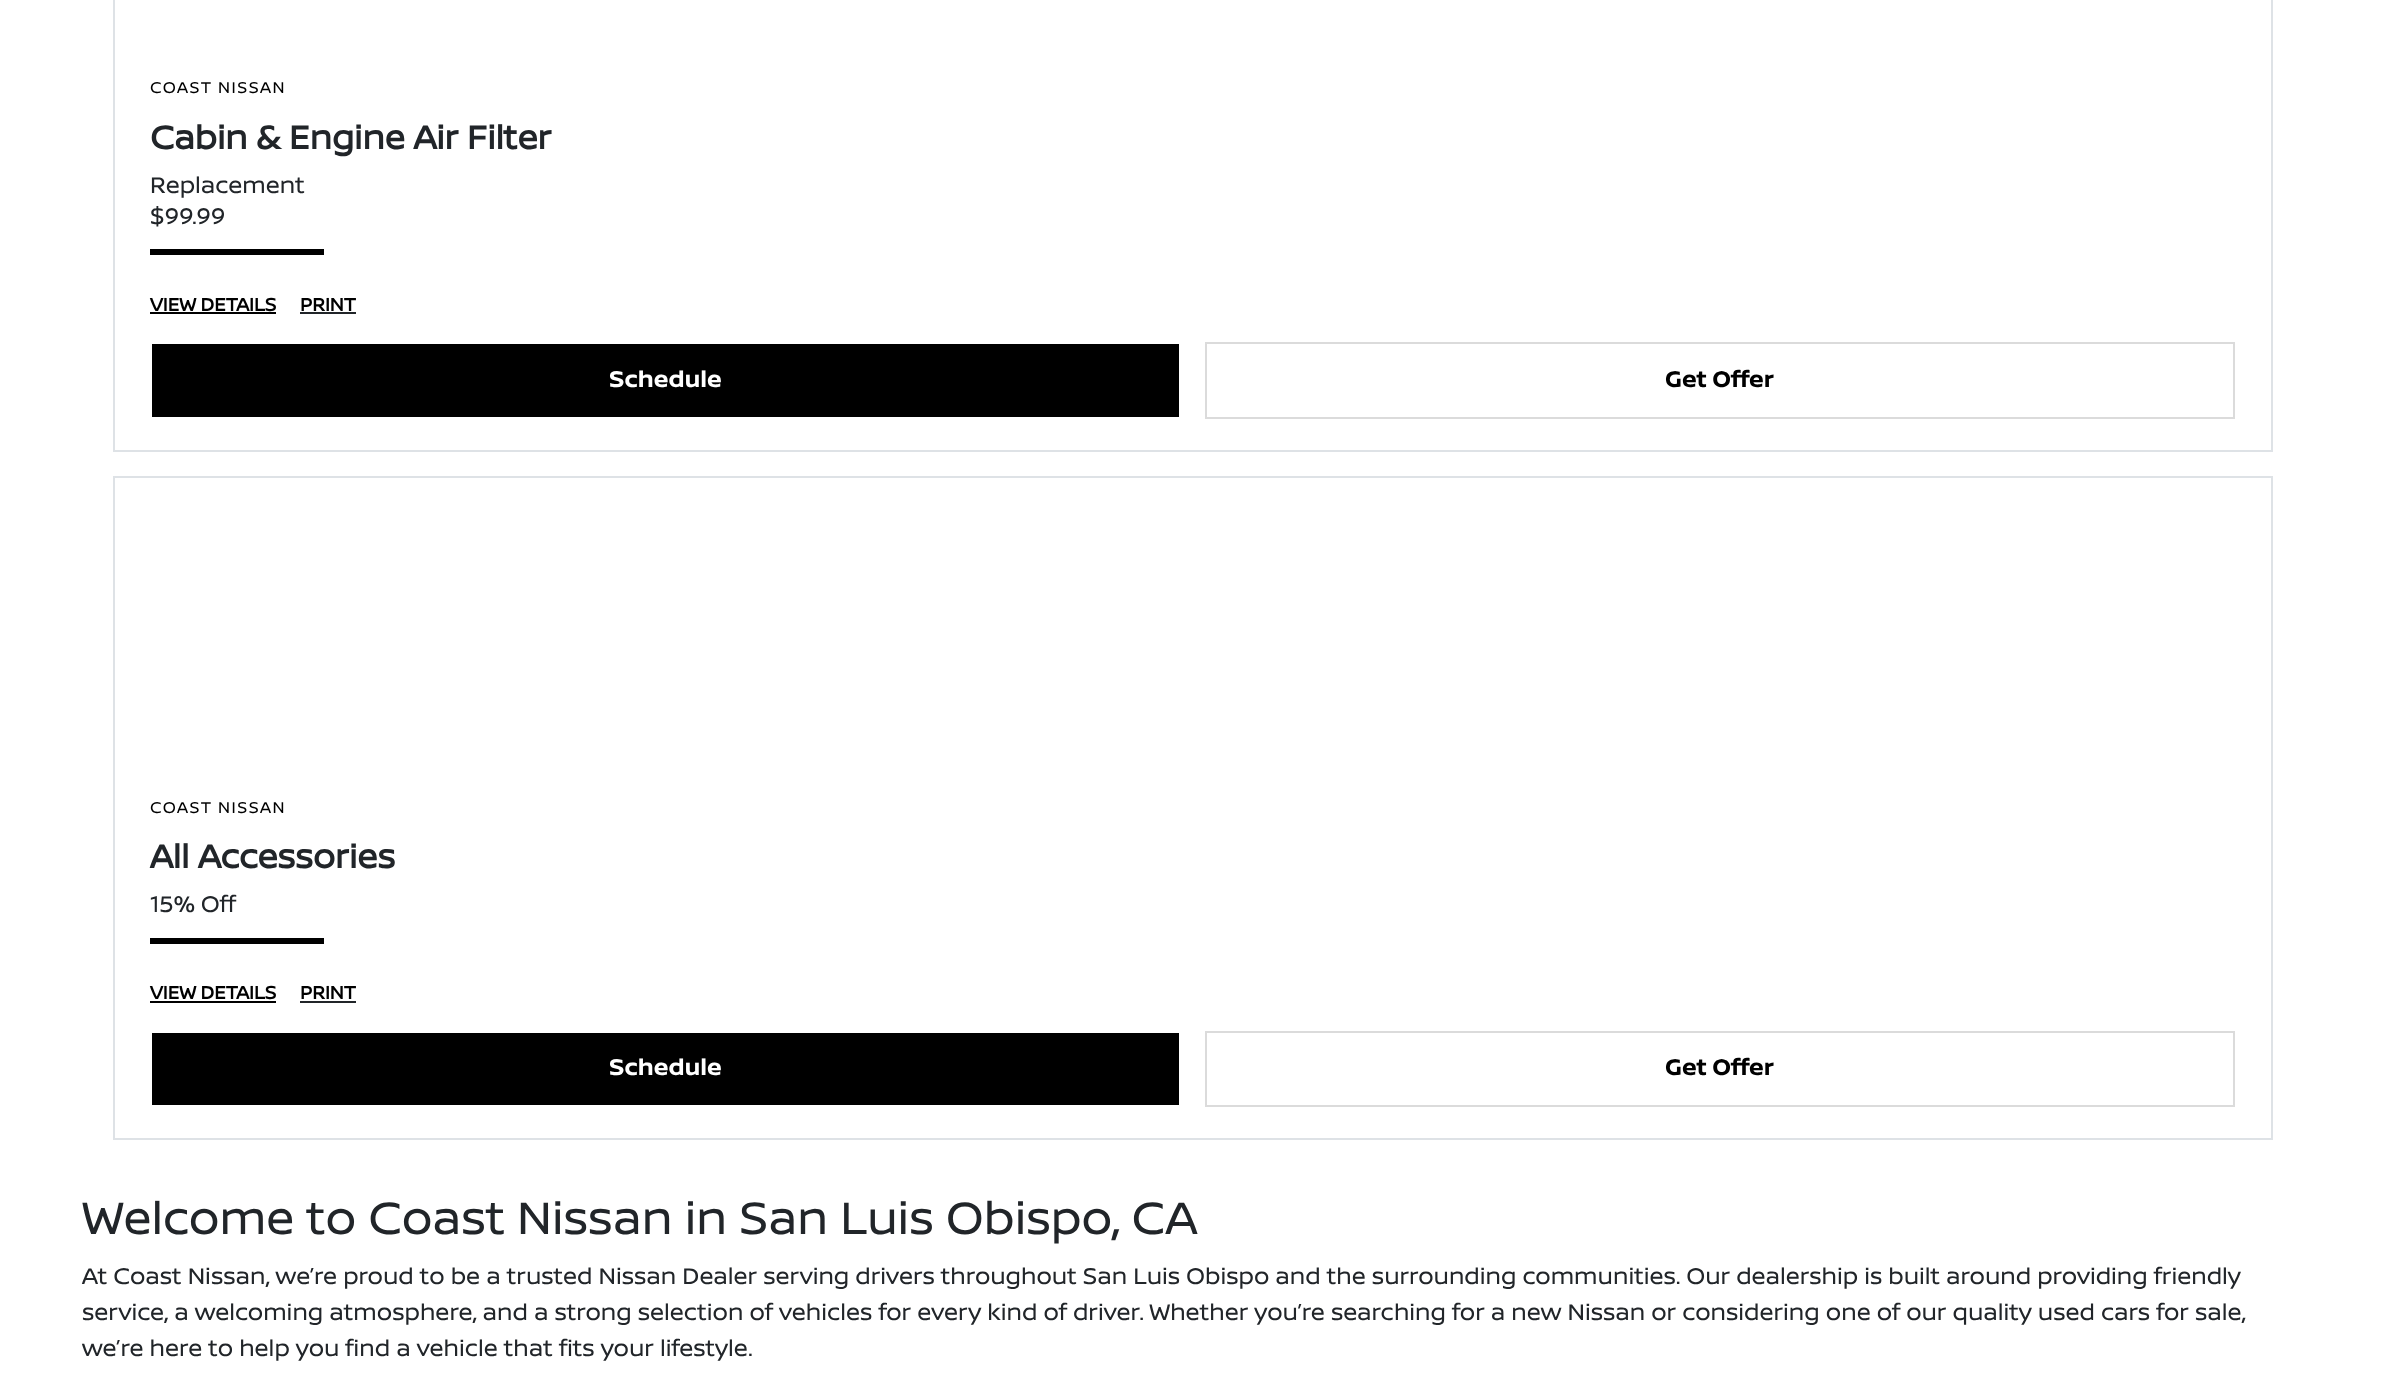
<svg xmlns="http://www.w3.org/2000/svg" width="2385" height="1380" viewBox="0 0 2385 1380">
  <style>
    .t1 { font: 16.5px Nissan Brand; letter-spacing: 1.5px; fill: #000; }
    .t2 { font: bold 34.5px Nissan Brand; fill: #212529; }
    .t3 { font: 24px Nissan Brand; fill: #212529; }
    .t4 { font: bold 19.25px Nissan Brand; fill: #000; }
    .t5 { font: bold 24px 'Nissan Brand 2'; fill: #fff; }
    .t6 { font: bold 24px 'Nissan Brand 2'; fill: #000; }
    .t7 { font: 48px Nissan Brand; fill: #212529; }
  </style>
  <rect width="100%" height="100%" fill="#fff"/>
  <rect x="114" y="-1" width="2158" height="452" fill="none" stroke="#dee2e6" stroke-width="2"/>
  <text x="150" y="93" class="t1">COAST NISSAN</text>
  <text x="150" y="149" class="t2">Cabin &amp; Engine Air Filter</text>
  <text x="150" y="193" class="t3">Replacement</text>
  <text x="150" y="224" class="t3">$99.99</text>
  <rect x="150" y="249" width="174" height="6" fill="#000"/>
  <text x="150" y="311" class="t4">VIEW DETAILS</text>
  <rect x="150" y="312" width="126" height="2" fill="#000"/>
  <text x="300" y="311" class="t4">PRINT</text>
  <rect x="300" y="312" width="56" height="2" fill="#212529"/>
  <rect x="152" y="344" width="1027" height="73" fill="#000"/>
  <text x="609" y="387" class="t5">Schedule</text>
  <rect x="1206" y="343" width="1028" height="75" fill="none" stroke="#dbdbdb" stroke-width="2"/>
  <text x="1665" y="387" class="t6">Get Offer</text>
  <rect x="114" y="477" width="2158" height="662" fill="none" stroke="#dee2e6" stroke-width="2"/>
  <text x="150" y="813" class="t1">COAST NISSAN</text>
  <text x="150" y="868" class="t2">All Accessories</text>
  <text x="150" y="912" class="t3">15% Off</text>
  <rect x="150" y="938" width="174" height="6" fill="#000"/>
  <text x="150" y="999" class="t4">VIEW DETAILS</text>
  <rect x="150" y="1001" width="126" height="2" fill="#000"/>
  <text x="300" y="999" class="t4">PRINT</text>
  <rect x="300" y="1001" width="56" height="2" fill="#212529"/>
  <rect x="152" y="1033" width="1027" height="72" fill="#000"/>
  <text x="609" y="1075" class="t5">Schedule</text>
  <rect x="1206" y="1032" width="1028" height="74" fill="none" stroke="#dbdbdb" stroke-width="2"/>
  <text x="1665" y="1075" class="t6">Get Offer</text>
  <text x="82" y="1234" class="t7">Welcome to Coast Nissan in San Luis Obispo, CA</text>
  <text x="82" y="1284" class="t3">At Coast Nissan, we’re proud to be a trusted Nissan Dealer serving drivers throughout San Luis Obispo and the surrounding communities. Our dealership is built around providing friendly</text>
  <text x="82" y="1320" class="t3">service, a welcoming atmosphere, and a strong selection of vehicles for every kind of driver. Whether you’re searching for a new Nissan or considering one of our quality used cars for sale,</text>
  <text x="82" y="1356" class="t3">we’re here to help you find a vehicle that fits your lifestyle.</text>
</svg>
